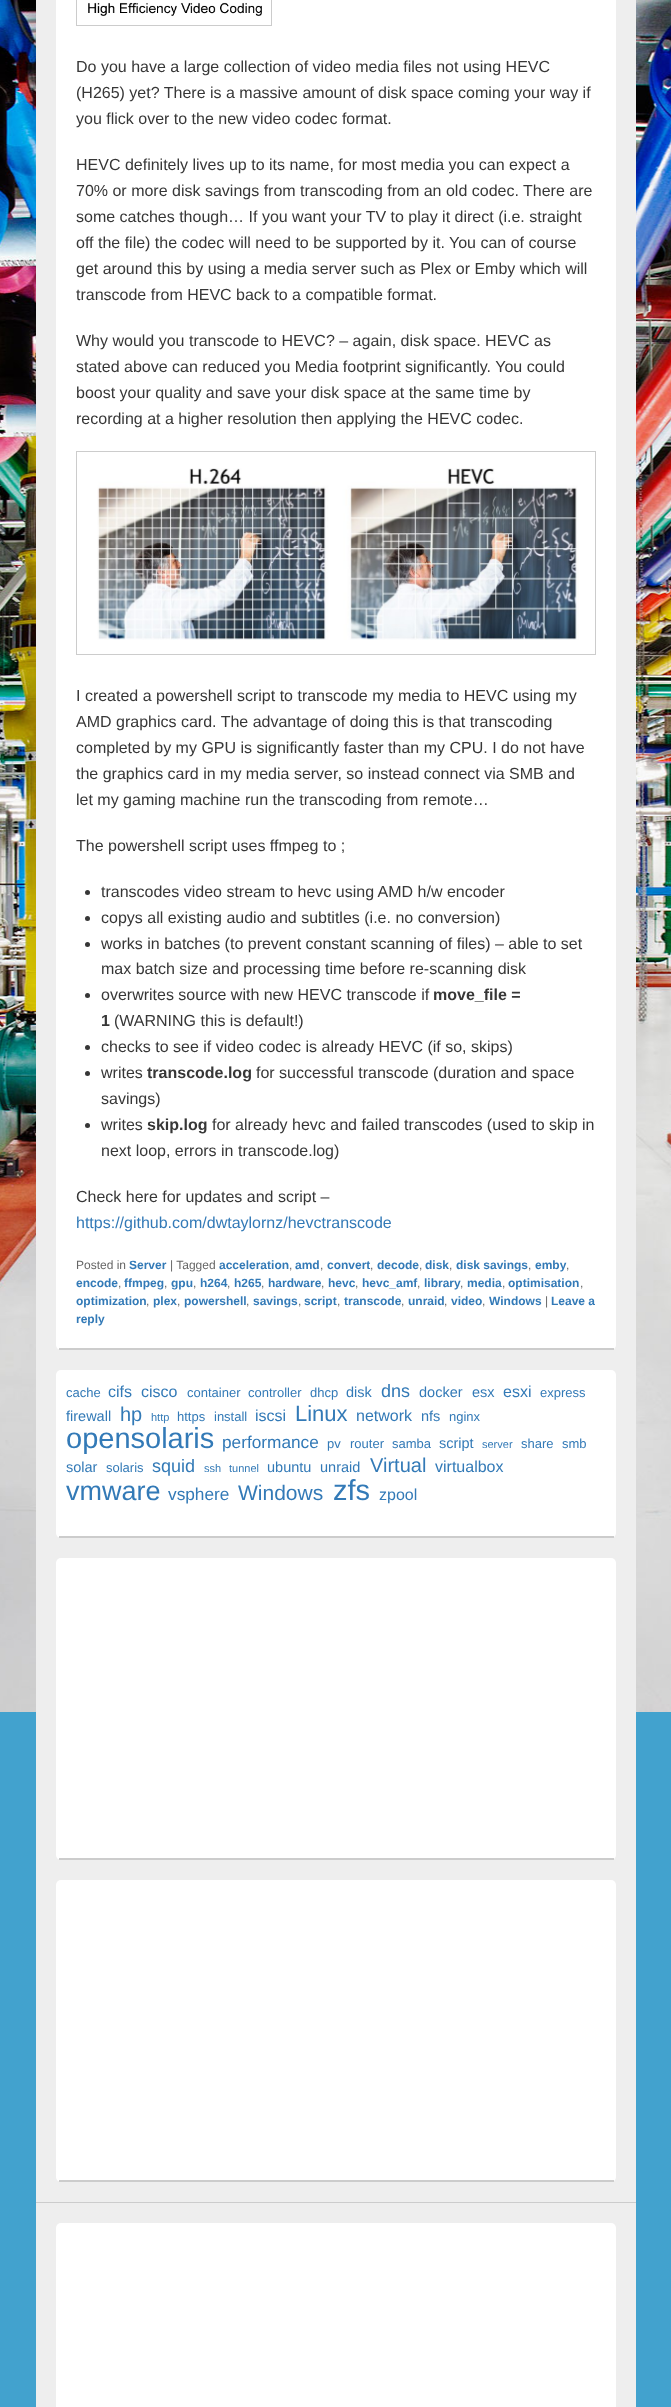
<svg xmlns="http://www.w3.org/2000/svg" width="671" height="2407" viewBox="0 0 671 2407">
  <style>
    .t1 { font: 16px Liberation Sans; fill: #373737; }
    .t2 { font: bold 16px Liberation Sans; fill: #373737; }
    .t3 { font: 16px Liberation Sans; fill: #337ab7; }
    .t4 { font: 12px Liberation Sans; fill: #666; }
    .t5 { font: bold 12px Liberation Sans; fill: #337ab7; }
    .t6 { font: 13px Liberation Sans; fill: #337ab7; }
    .t7 { font: 14.5px Liberation Sans; fill: #337ab7; }
    .t8 { font: 18px Liberation Sans; fill: #337ab7; }
    .t9 { font: 20px Liberation Sans; fill: #337ab7; }
    .t10 { font: 11px Liberation Sans; fill: #337ab7; }
    .t11 { font: 22px Liberation Sans; fill: #337ab7; }
    .t12 { font: 29px Liberation Sans; fill: #337ab7; }
    .t13 { font: 17.25px Liberation Sans; fill: #337ab7; }
    .t14 { font: 27px Liberation Sans; fill: #337ab7; }
    .t15 { font: 21px Liberation Sans; fill: #337ab7; }
  </style>
  <rect width="100%" height="100%" fill="#42a2ce"/>
  <image x="0" y="0" width="671" height="1712" href="images/1.png"/>
  <rect x="36" y="0" width="600" height="2407" fill="#eee"/>
  <rect x="56" y="-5" width="560" height="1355" rx="5" fill="#fff"/>
  <rect x="59" y="1348" width="555" height="2" fill="#ccc"/>
  <rect x="76.5" y="-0.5" width="195" height="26" fill="none" stroke="#ccc"/>
  <image x="88" y="2" width="174" height="14" href="images/2.png"/>
  <text x="76" y="72" class="t1">Do you have a large collection of video media files not using HEVC</text>
  <text x="76" y="98" class="t1">(H265) yet? There is a massive amount of disk space coming your way if</text>
  <text x="76" y="124" class="t1">you flick over to the new video codec format.</text>
  <text x="76" y="170" class="t1">HEVC definitely lives up to its name, for most media you can expect a</text>
  <text x="76" y="196" class="t1">70% or more disk savings from transcoding from an old codec. There are</text>
  <text x="76" y="222" class="t1">some catches though… If you want your TV to play it direct (i.e. straight</text>
  <text x="76" y="248" class="t1">off the file) the codec will need to be supported by it. You can of course</text>
  <text x="76" y="274" class="t1">get around this by using a media server such as Plex or Emby which will</text>
  <text x="76" y="300" class="t1">transcode from HEVC back to a compatible format.</text>
  <text x="76" y="346" class="t1">Why would you transcode to HEVC? – again, disk space. HEVC as</text>
  <text x="76" y="372" class="t1">stated above can reduced you Media footprint significantly. You could</text>
  <text x="76" y="398" class="t1">boost your quality and save your disk space at the same time by</text>
  <text x="76" y="424" class="t1">recording at a higher resolution then applying the HEVC codec.</text>
  <rect x="76.5" y="451.5" width="519" height="203" fill="none" stroke="#ccc"/>
  <image x="97" y="468" width="482" height="172" href="images/3.png"/>
  <text x="76" y="701" class="t1">I created a powershell script to transcode my media to HEVC using my</text>
  <text x="76" y="727" class="t1">AMD graphics card. The advantage of doing this is that transcoding</text>
  <text x="76" y="753" class="t1">completed by my GPU is significantly faster than my CPU. I do not have</text>
  <text x="76" y="779" class="t1">the graphics card in my media server, so instead connect via SMB and</text>
  <text x="76" y="805" class="t1">let my gaming machine run the transcoding from remote…</text>
  <text x="76" y="851" class="t1">The powershell script uses ffmpeg to ;</text>
  <circle cx="87.5" cy="892.5" r="2.5" fill="#373737"/>
  <text x="101" y="897" class="t1">transcodes video stream to hevc using AMD h/w encoder</text>
  <circle cx="87.5" cy="918.5" r="2.5" fill="#373737"/>
  <text x="101" y="923" class="t1">copys all existing audio and subtitles (i.e. no conversion)</text>
  <circle cx="87.5" cy="944.5" r="2.5" fill="#373737"/>
  <text x="101" y="949" class="t1">works in batches (to prevent constant scanning of files) – able to set</text>
  <text x="101" y="974" class="t1">max batch size and processing time before re-scanning disk</text>
  <circle cx="87.5" cy="995.5" r="2.5" fill="#373737"/>
  <text x="101" y="1000" class="t1">overwrites source with new HEVC transcode if</text>
  <text x="433" y="1000" class="t2">move_file =</text>
  <text x="101" y="1026" class="t2">1</text>
  <text x="114" y="1026" class="t1">(WARNING this is default!)</text>
  <circle cx="87.5" cy="1047.5" r="2.5" fill="#373737"/>
  <text x="101" y="1052" class="t1">checks to see if video codec is already HEVC (if so, skips)</text>
  <circle cx="87.5" cy="1073.5" r="2.5" fill="#373737"/>
  <text x="101" y="1078" class="t1">writes</text>
  <text x="147" y="1078" class="t2">transcode.log</text>
  <text x="256" y="1078" class="t1">for successful transcode (duration and space</text>
  <text x="101" y="1104" class="t1">savings)</text>
  <circle cx="87.5" cy="1125.5" r="2.5" fill="#373737"/>
  <text x="101" y="1130" class="t1">writes</text>
  <text x="147" y="1130" class="t2">skip.log</text>
  <text x="212" y="1130" class="t1">for already hevc and failed transcodes (used to skip in</text>
  <text x="101" y="1156" class="t1">next loop, errors in transcode.log)</text>
  <text x="76" y="1202" class="t1">Check here for updates and script –</text>
  <text x="76" y="1228" class="t3">https://github.com/dwtaylornz/hevctranscode</text>
  <text x="76" y="1269" class="t4">Posted in</text>
  <text x="129" y="1269" class="t5">Server</text>
  <text x="170" y="1269" class="t4">| Tagged</text>
  <text x="219" y="1269" class="t5">acceleration</text>
  <text x="289" y="1269" class="t4">,</text>
  <text x="295" y="1269" class="t5">amd</text>
  <text x="320" y="1269" class="t4">,</text>
  <text x="327" y="1269" class="t5">convert</text>
  <text x="370" y="1269" class="t4">,</text>
  <text x="377" y="1269" class="t5">decode</text>
  <text x="419" y="1269" class="t4">,</text>
  <text x="425" y="1269" class="t5">disk</text>
  <text x="449" y="1269" class="t4">,</text>
  <text x="456" y="1269" class="t5">disk savings</text>
  <text x="528" y="1269" class="t4">,</text>
  <text x="535" y="1269" class="t5">emby</text>
  <text x="566" y="1269" class="t4">,</text>
  <text x="76" y="1287" class="t5">encode</text>
  <text x="118" y="1287" class="t4">,</text>
  <text x="124" y="1287" class="t5">ffmpeg</text>
  <text x="164" y="1287" class="t4">,</text>
  <text x="171" y="1287" class="t5">gpu</text>
  <text x="193" y="1287" class="t4">,</text>
  <text x="200" y="1287" class="t5">h264</text>
  <text x="227" y="1287" class="t4">,</text>
  <text x="234" y="1287" class="t5">h265</text>
  <text x="261" y="1287" class="t4">,</text>
  <text x="268" y="1287" class="t5">hardware</text>
  <text x="321" y="1287" class="t4">,</text>
  <text x="328" y="1287" class="t5">hevc</text>
  <text x="355" y="1287" class="t4">,</text>
  <text x="362" y="1287" class="t5">hevc_amf</text>
  <text x="417" y="1287" class="t4">,</text>
  <text x="424" y="1287" class="t5">library</text>
  <text x="460" y="1287" class="t4">,</text>
  <text x="467" y="1287" class="t5">media</text>
  <text x="502" y="1287" class="t4">,</text>
  <text x="508" y="1287" class="t5">optimisation</text>
  <text x="580" y="1287" class="t4">,</text>
  <text x="76" y="1305" class="t5">optimization</text>
  <text x="146" y="1305" class="t4">,</text>
  <text x="153" y="1305" class="t5">plex</text>
  <text x="177" y="1305" class="t4">,</text>
  <text x="184" y="1305" class="t5">powershell</text>
  <text x="246" y="1305" class="t4">,</text>
  <text x="253" y="1305" class="t5">savings</text>
  <text x="298" y="1305" class="t4">,</text>
  <text x="304" y="1305" class="t5">script</text>
  <text x="337" y="1305" class="t4">,</text>
  <text x="344" y="1305" class="t5">transcode</text>
  <text x="401" y="1305" class="t4">,</text>
  <text x="408" y="1305" class="t5">unraid</text>
  <text x="444" y="1305" class="t4">,</text>
  <text x="451" y="1305" class="t5">video</text>
  <text x="482" y="1305" class="t4">,</text>
  <text x="489" y="1305" class="t5">Windows</text>
  <text x="545" y="1305" class="t4">|</text>
  <text x="551" y="1305" class="t5">Leave a</text>
  <text x="76" y="1323" class="t5">reply</text>
  <rect x="56" y="1370" width="560" height="168" rx="5" fill="#fff"/>
  <rect x="59" y="1536" width="555" height="2" fill="#ccc"/>
  <text x="66" y="1397" class="t6">cache</text>
  <text x="108" y="1397" class="t3">cifs</text>
  <text x="141" y="1397" class="t3">cisco</text>
  <text x="187" y="1397" class="t6">container</text>
  <text x="248" y="1397" class="t6">controller</text>
  <text x="310" y="1397" class="t6">dhcp</text>
  <text x="346" y="1397" class="t7">disk</text>
  <text x="381" y="1397" class="t8">dns</text>
  <text x="419" y="1397" class="t7">docker</text>
  <text x="472" y="1397" class="t7">esx</text>
  <text x="503" y="1397" class="t3">esxi</text>
  <text x="540" y="1397" class="t6">express</text>
  <text x="66" y="1421" class="t7">firewall</text>
  <text x="120" y="1421" class="t9">hp</text>
  <text x="151" y="1421" class="t10">http</text>
  <text x="177" y="1421" class="t6">https</text>
  <text x="214" y="1421" class="t6">install</text>
  <text x="255" y="1421" class="t3">iscsi</text>
  <text x="295" y="1421" class="t11">Linux</text>
  <text x="356" y="1421" class="t3">network</text>
  <text x="421" y="1421" class="t7">nfs</text>
  <text x="449" y="1421" class="t6">nginx</text>
  <text x="66" y="1448" class="t12">opensolaris</text>
  <text x="222" y="1448" class="t13">performance</text>
  <text x="327" y="1448" class="t6">pv</text>
  <text x="350" y="1448" class="t6">router</text>
  <text x="392" y="1448" class="t6">samba</text>
  <text x="439" y="1448" class="t7">script</text>
  <text x="482" y="1448" class="t10">server</text>
  <text x="521" y="1448" class="t6">share</text>
  <text x="562" y="1448" class="t6">smb</text>
  <text x="66" y="1472" class="t7">solar</text>
  <text x="106" y="1472" class="t6">solaris</text>
  <text x="152" y="1472" class="t8">squid</text>
  <text x="204" y="1472" class="t10">ssh</text>
  <text x="229" y="1472" class="t10">tunnel</text>
  <text x="267" y="1472" class="t7">ubuntu</text>
  <text x="320" y="1472" class="t7">unraid</text>
  <text x="370" y="1472" class="t9">Virtual</text>
  <text x="435" y="1472" class="t3">virtualbox</text>
  <text x="66" y="1500" class="t14">vmware</text>
  <text x="168" y="1500" class="t13">vsphere</text>
  <text x="238" y="1500" class="t15">Windows</text>
  <text x="333" y="1500" class="t12">zfs</text>
  <text x="379" y="1500" class="t3">zpool</text>
  <rect x="56" y="1558" width="560" height="302" rx="5" fill="#fff"/>
  <rect x="59" y="1858" width="555" height="2" fill="#ccc"/>
  <rect x="56" y="1880" width="560" height="302" rx="5" fill="#fff"/>
  <rect x="59" y="2180" width="555" height="2" fill="#ccc"/>
  <rect x="36" y="2202" width="600" height="1" fill="#ccc"/>
  <rect x="56" y="2223" width="560" height="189" rx="5" fill="#fff"/>
</svg>
